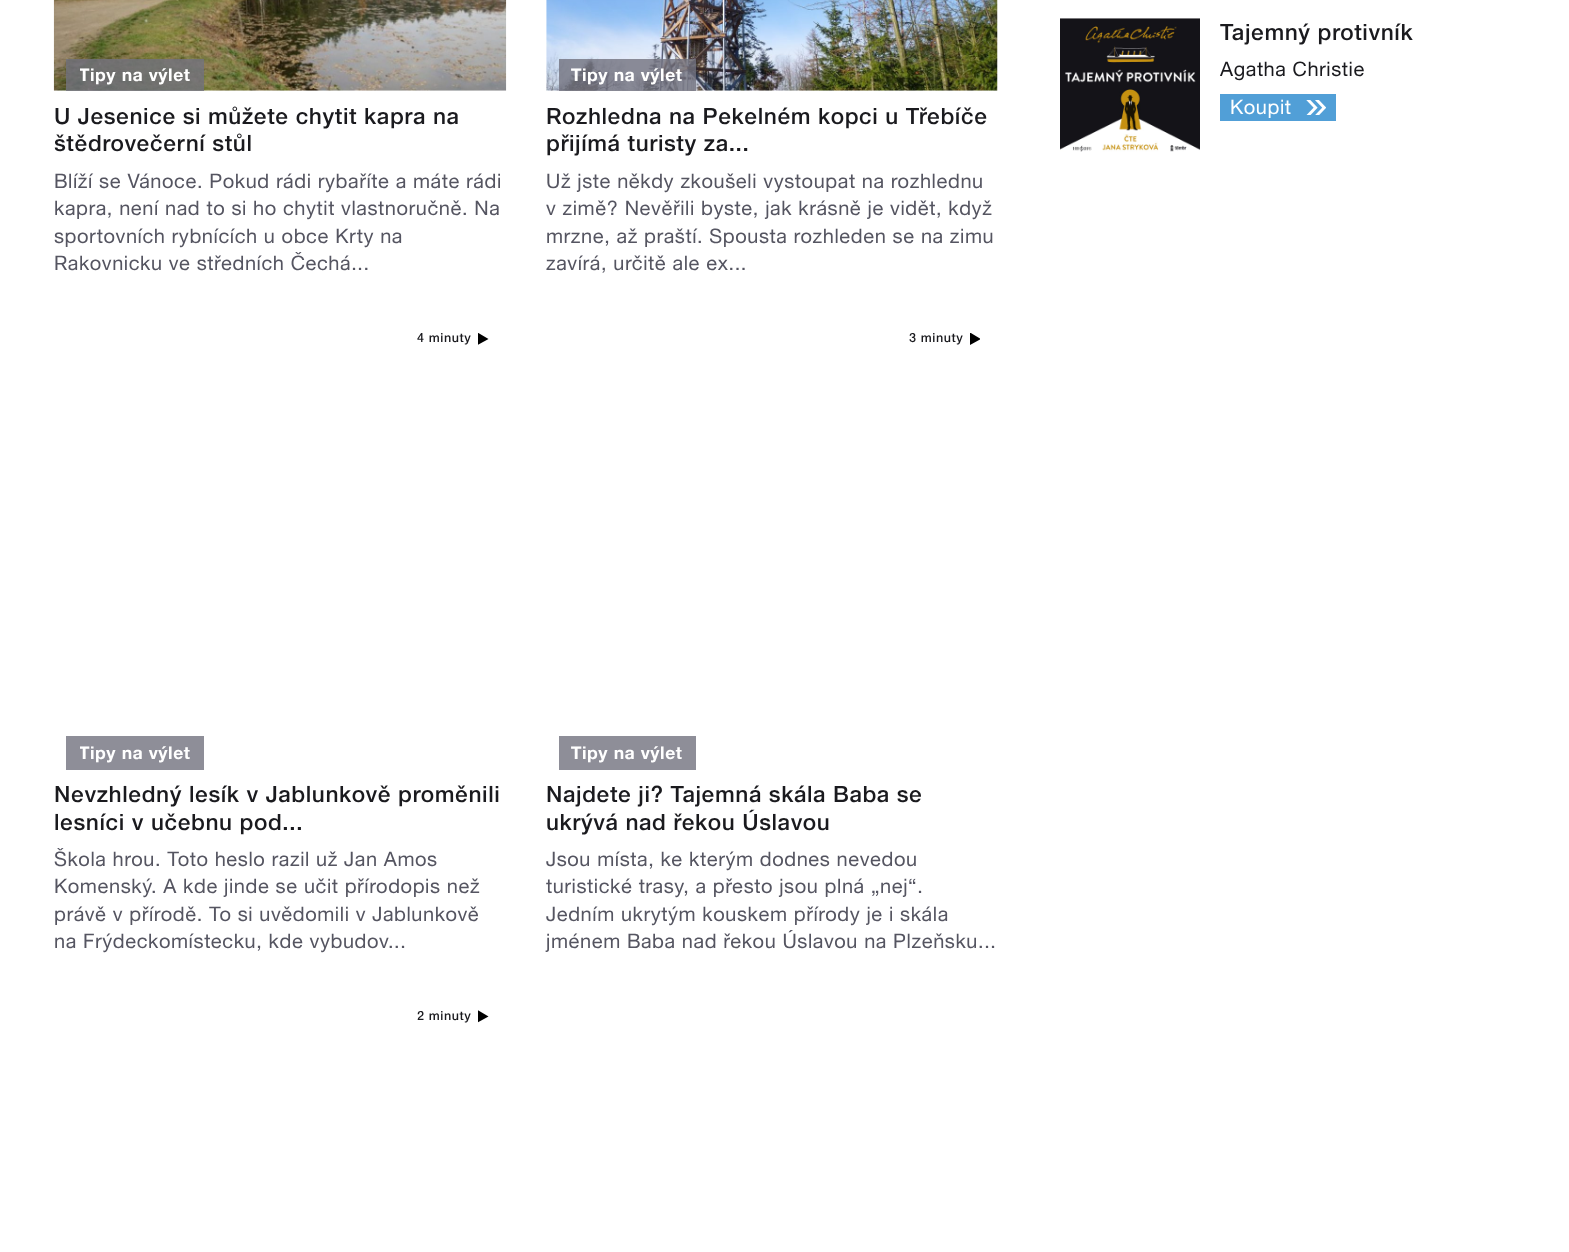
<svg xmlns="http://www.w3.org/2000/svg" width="1569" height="1252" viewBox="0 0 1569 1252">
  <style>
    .t1 { font: bold 17.5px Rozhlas; letter-spacing: 0.6px; fill: #fff; }
    .t2 { font: 500 22.5px Rozhlas; letter-spacing: 0.6px; fill: #1a1a1e; }
    .t3 { font: 20px Rozhlas; letter-spacing: 0.6px; fill: #555561; }
    .t4 { font: 500 12.5px Rozhlas; letter-spacing: 0.6px; fill: #1a1a1e; }
    .t5 { font: 20px Rozhlas; letter-spacing: 0.6px; fill: #1a1a1e; }
    .t6 { font: 20px Rozhlas; letter-spacing: 0.6px; fill: #fff; }
  </style>
  <defs>
    <clipPath id="clip1"><rect x="80" y="61" width="111" height="28"/></clipPath>
    <clipPath id="clip2"><rect x="478" y="333" width="11" height="12"/></clipPath>
    <clipPath id="clip3"><rect x="80" y="740" width="111" height="28"/></clipPath>
    <clipPath id="clip4"><rect x="970" y="333" width="10" height="12"/></clipPath>
    <clipPath id="clip5"><rect x="478" y="1010" width="11" height="13"/></clipPath>
  </defs>
  <rect width="100%" height="100%" fill="#fff"/>
  <image x="53" y="0" width="454" height="91" href="images/1.png"/>
  <rect x="66" y="59" width="138" height="32" fill="#72727ecc"/>
  <g clip-path="url(#clip1)">
    <text x="79" y="81" class="t1">Tipy na výlet</text>
  </g>
  <text x="54" y="124" class="t2">U Jesenice si můžete chytit kapra na</text>
  <text x="54" y="151" class="t2">štědrovečerní stůl</text>
  <text x="54" y="188" class="t3">Blíží se Vánoce. Pokud rádi rybaříte a máte rádi</text>
  <text x="54" y="215" class="t3">kapra, není nad to si ho chytit vlastnoručně. Na</text>
  <text x="54" y="243" class="t3">sportovních rybnících u obce Krty na</text>
  <text x="54" y="270" class="t3">Rakovnicku ve středních Čechá...</text>
  <image x="546" y="0" width="452" height="91" href="images/2.png"/>
  <rect x="559" y="59" width="137" height="32" fill="#72727ecc"/>
  <text x="571" y="81" class="t1">Tipy na výlet</text>
  <text x="546" y="124" class="t2">Rozhledna na Pekelném kopci u Třebíče</text>
  <text x="546" y="151" class="t2">přijímá turisty za...</text>
  <text x="546" y="188" class="t3">Už jste někdy zkoušeli vystoupat na rozhlednu</text>
  <text x="546" y="215" class="t3">v zimě? Nevěřili byste, jak krásně je vidět, když</text>
  <text x="546" y="243" class="t3">mrzne, až praští. Spousta rozhleden se na zimu</text>
  <text x="546" y="270" class="t3">zavírá, určitě ale ex...</text>
  <text x="417" y="342" class="t4">4 minuty</text>
  <g clip-path="url(#clip2)">
    <path d="M477.5 332.5L488.5 339L477.5 345Z" fill="#000" fill-rule="evenodd"/>
  </g>
  <rect x="66" y="736" width="138" height="34" fill="#8e8e98"/>
  <g clip-path="url(#clip3)">
    <text x="79" y="759" class="t1">Tipy na výlet</text>
  </g>
  <text x="54" y="802" class="t2">Nevzhledný lesík v Jablunkově proměnili</text>
  <text x="54" y="830" class="t2">lesníci v učebnu pod...</text>
  <text x="54" y="866" class="t3">Škola hrou. Toto heslo razil už Jan Amos</text>
  <text x="54" y="893" class="t3">Komenský. A kde jinde se učit přírodopis než</text>
  <text x="54" y="921" class="t3">právě v přírodě. To si uvědomili v Jablunkově</text>
  <text x="54" y="948" class="t3">na Frýdeckomístecku, kde vybudov...</text>
  <text x="909" y="342" class="t4">3 minuty</text>
  <g clip-path="url(#clip4)">
    <path d="M970 332.5L981 339L970 345Z" fill="#000" fill-rule="evenodd"/>
  </g>
  <rect x="559" y="736" width="137" height="34" fill="#8e8e98"/>
  <text x="571" y="759" class="t1">Tipy na výlet</text>
  <text x="546" y="802" class="t2">Najdete ji? Tajemná skála Baba se</text>
  <text x="546" y="830" class="t2">ukrývá nad řekou Úslavou</text>
  <text x="546" y="866" class="t3">Jsou místa, ke kterým dodnes nevedou</text>
  <text x="546" y="893" class="t3">turistické trasy, a přesto jsou plná „nej“.</text>
  <text x="546" y="921" class="t3">Jedním ukrytým kouskem přírody je i skála</text>
  <text x="546" y="948" class="t3">jménem Baba nad řekou Úslavou na Plzeňsku...</text>
  <text x="417" y="1020" class="t4">2 minuty</text>
  <g clip-path="url(#clip5)">
    <path d="M477.5 1010L488.5 1016.5L477.5 1022.5Z" fill="#000" fill-rule="evenodd"/>
  </g>
  <image x="1060" y="18" width="140" height="134" href="images/3.png"/>
  <text x="1220" y="40" class="t2">Tajemný protivník</text>
  <text x="1220" y="76" class="t5">Agatha Christie</text>
  <rect x="1220" y="94" width="116" height="27" fill="#519fd7"/>
  <text x="1230" y="114" class="t6">Koupit</text>
  <image x="1306" y="100" width="20" height="15" href="images/4.png"/>
</svg>
